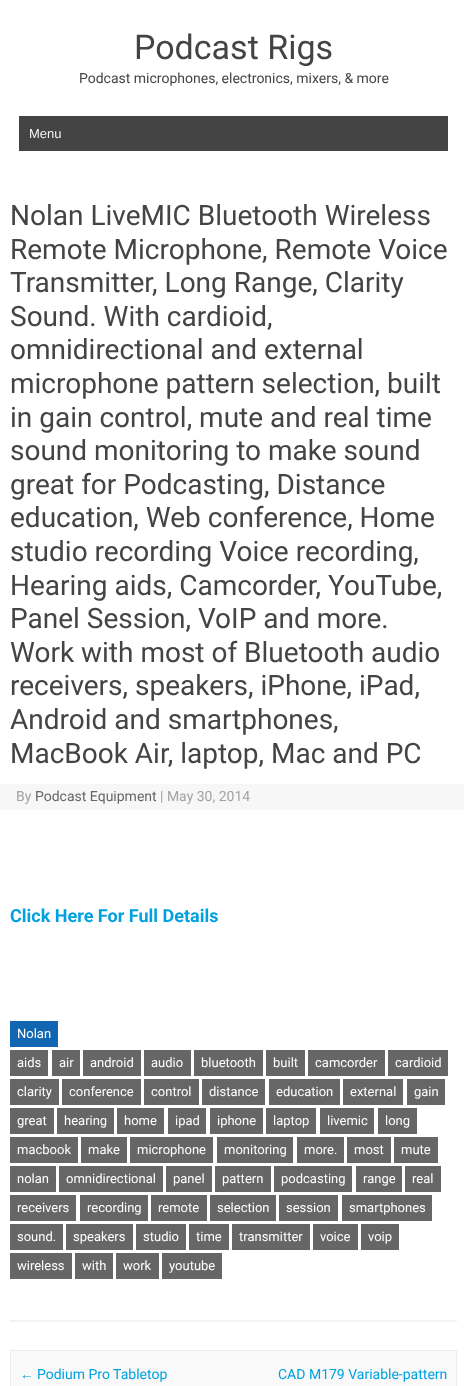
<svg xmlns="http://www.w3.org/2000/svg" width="467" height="1386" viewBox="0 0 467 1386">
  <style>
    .t1 { font: 34px Roboto; fill: #444; }
    .t2 { font: 14px Roboto; fill: #444; }
    .t3 { font: 13px Liberation Sans; fill: #f3f3f3; }
    .t4 { font: 28px Roboto; fill: #444; }
    .t5 { font: 14px Roboto; fill: #a2a2a2; }
    .t6 { font: 14px Roboto; fill: #666; }
    .t7 { font: bold 18px Roboto; fill: #00a1e0; }
    .t8 { font: 13px Roboto; fill: #fff; }
    .t9 { font: 14px Liberation Sans; fill: #00a1e0; }
    .t10 { font: 14px Roboto; fill: #00a1e0; }
  </style>
  <rect width="100%" height="100%" fill="#fff"/>
  <text x="134" y="59" class="t1">Podcast Rigs</text>
  <text x="79" y="83" class="t2">Podcast microphones, electronics, mixers, &amp; more</text>
  <rect x="19" y="116" width="429" height="35" fill="#444"/>
  <text x="29" y="138" class="t3">Menu</text>
  <rect x="10" y="1320" width="447" height="2" fill="#f3f3f3"/>
  <text x="10" y="225" class="t4">Nolan LiveMIC Bluetooth Wireless</text>
  <text x="10" y="259" class="t4">Remote Microphone, Remote Voice</text>
  <text x="10" y="292" class="t4">Transmitter, Long Range, Clarity</text>
  <text x="10" y="326" class="t4">Sound. With cardioid,</text>
  <text x="10" y="359" class="t4">omnidirectional and external</text>
  <text x="10" y="393" class="t4">microphone pattern selection, built</text>
  <text x="10" y="427" class="t4">in gain control, mute and real time</text>
  <text x="10" y="460" class="t4">sound monitoring to make sound</text>
  <text x="10" y="494" class="t4">great for Podcasting, Distance</text>
  <text x="10" y="527" class="t4">education, Web conference, Home</text>
  <text x="10" y="561" class="t4">studio recording Voice recording,</text>
  <text x="10" y="595" class="t4">Hearing aids, Camcorder, YouTube,</text>
  <text x="10" y="628" class="t4">Panel Session, VoIP and more.</text>
  <text x="10" y="662" class="t4">Work with most of Bluetooth audio</text>
  <text x="10" y="695" class="t4">receivers, speakers, iPhone, iPad,</text>
  <text x="10" y="729" class="t4">Android and smartphones,</text>
  <text x="10" y="763" class="t4">MacBook Air, laptop, Mac and PC</text>
  <rect x="0" y="784" width="464" height="26" fill="#f7f7f7"/>
  <text x="16" y="801" class="t5">By</text>
  <text x="35" y="801" class="t6">Podcast Equipment</text>
  <text x="160" y="801" class="t5">| May 30, 2014</text>
  <text x="10" y="922" class="t7">Click Here For Full Details</text>
  <rect x="10" y="1021" width="48" height="26" fill="#1166b1"/>
  <text x="17" y="1038" class="t8">Nolan</text>
  <rect x="10" y="1050" width="38" height="26" fill="#666"/>
  <text x="17" y="1067" class="t8">aids</text>
  <rect x="52" y="1050" width="28" height="26" fill="#666"/>
  <text x="59" y="1067" class="t8">air</text>
  <rect x="83" y="1050" width="58" height="26" fill="#666"/>
  <text x="90" y="1067" class="t8">android</text>
  <rect x="144" y="1050" width="47" height="26" fill="#666"/>
  <text x="151" y="1067" class="t8">audio</text>
  <rect x="194" y="1050" width="69" height="26" fill="#666"/>
  <text x="201" y="1067" class="t8">bluetooth</text>
  <rect x="266" y="1050" width="39" height="26" fill="#666"/>
  <text x="273" y="1067" class="t8">built</text>
  <rect x="308" y="1050" width="77" height="26" fill="#666"/>
  <text x="315" y="1067" class="t8">camcorder</text>
  <rect x="388" y="1050" width="60" height="26" fill="#666"/>
  <text x="395" y="1067" class="t8">cardioid</text>
  <rect x="10" y="1079" width="49" height="26" fill="#666"/>
  <text x="17" y="1096" class="t8">clarity</text>
  <rect x="62" y="1079" width="79" height="26" fill="#666"/>
  <text x="69" y="1096" class="t8">conference</text>
  <rect x="144" y="1079" width="55" height="26" fill="#666"/>
  <text x="151" y="1096" class="t8">control</text>
  <rect x="202" y="1079" width="63" height="26" fill="#666"/>
  <text x="209" y="1096" class="t8">distance</text>
  <rect x="269" y="1079" width="71" height="26" fill="#666"/>
  <text x="276" y="1096" class="t8">education</text>
  <rect x="343" y="1079" width="60" height="26" fill="#666"/>
  <text x="350" y="1096" class="t8">external</text>
  <rect x="407" y="1079" width="38" height="26" fill="#666"/>
  <text x="414" y="1096" class="t8">gain</text>
  <rect x="10" y="1108" width="44" height="26" fill="#666"/>
  <text x="17" y="1125" class="t8">great</text>
  <rect x="57" y="1108" width="57" height="26" fill="#666"/>
  <text x="64" y="1125" class="t8">hearing</text>
  <rect x="117" y="1108" width="47" height="26" fill="#666"/>
  <text x="124" y="1125" class="t8">home</text>
  <rect x="168" y="1108" width="38" height="26" fill="#666"/>
  <text x="175" y="1125" class="t8">ipad</text>
  <rect x="210" y="1108" width="53" height="26" fill="#666"/>
  <text x="217" y="1125" class="t8">iphone</text>
  <rect x="266" y="1108" width="50" height="26" fill="#666"/>
  <text x="273" y="1125" class="t8">laptop</text>
  <rect x="320" y="1108" width="54" height="26" fill="#666"/>
  <text x="327" y="1125" class="t8">livemic</text>
  <rect x="378" y="1108" width="39" height="26" fill="#666"/>
  <text x="385" y="1125" class="t8">long</text>
  <rect x="10" y="1137" width="68" height="26" fill="#666"/>
  <text x="17" y="1154" class="t8">macbook</text>
  <rect x="81" y="1137" width="46" height="26" fill="#666"/>
  <text x="88" y="1154" class="t8">make</text>
  <rect x="130" y="1137" width="83" height="26" fill="#666"/>
  <text x="137" y="1154" class="t8">microphone</text>
  <rect x="217" y="1137" width="76" height="26" fill="#666"/>
  <text x="224" y="1154" class="t8">monitoring</text>
  <rect x="297" y="1137" width="47" height="26" fill="#666"/>
  <text x="304" y="1154" class="t8">more.</text>
  <rect x="347" y="1137" width="44" height="26" fill="#666"/>
  <text x="354" y="1154" class="t8">most</text>
  <rect x="394" y="1137" width="44" height="26" fill="#666"/>
  <text x="401" y="1154" class="t8">mute</text>
  <rect x="10" y="1166" width="46" height="26" fill="#666"/>
  <text x="17" y="1183" class="t8">nolan</text>
  <rect x="59" y="1166" width="104" height="26" fill="#666"/>
  <text x="66" y="1183" class="t8">omnidirectional</text>
  <rect x="166" y="1166" width="46" height="26" fill="#666"/>
  <text x="173" y="1183" class="t8">panel</text>
  <rect x="215" y="1166" width="56" height="26" fill="#666"/>
  <text x="222" y="1183" class="t8">pattern</text>
  <rect x="274" y="1166" width="78" height="26" fill="#666"/>
  <text x="281" y="1183" class="t8">podcasting</text>
  <rect x="356" y="1166" width="46" height="26" fill="#666"/>
  <text x="363" y="1183" class="t8">range</text>
  <rect x="405" y="1166" width="36" height="26" fill="#666"/>
  <text x="412" y="1183" class="t8">real</text>
  <rect x="10" y="1195" width="66" height="26" fill="#666"/>
  <text x="17" y="1212" class="t8">receivers</text>
  <rect x="80" y="1195" width="68" height="26" fill="#666"/>
  <text x="87" y="1212" class="t8">recording</text>
  <rect x="151" y="1195" width="56" height="26" fill="#666"/>
  <text x="158" y="1212" class="t8">remote</text>
  <rect x="210" y="1195" width="66" height="26" fill="#666"/>
  <text x="217" y="1212" class="t8">selection</text>
  <rect x="279" y="1195" width="59" height="26" fill="#666"/>
  <text x="286" y="1212" class="t8">session</text>
  <rect x="342" y="1195" width="90" height="26" fill="#666"/>
  <text x="349" y="1212" class="t8">smartphones</text>
  <rect x="10" y="1224" width="53" height="26" fill="#666"/>
  <text x="17" y="1241" class="t8">sound.</text>
  <rect x="66" y="1224" width="67" height="26" fill="#666"/>
  <text x="73" y="1241" class="t8">speakers</text>
  <rect x="136" y="1224" width="50" height="26" fill="#666"/>
  <text x="143" y="1241" class="t8">studio</text>
  <rect x="189" y="1224" width="40" height="26" fill="#666"/>
  <text x="196" y="1241" class="t8">time</text>
  <rect x="232" y="1224" width="78" height="26" fill="#666"/>
  <text x="239" y="1241" class="t8">transmitter</text>
  <rect x="313" y="1224" width="45" height="26" fill="#666"/>
  <text x="320" y="1241" class="t8">voice</text>
  <rect x="361" y="1224" width="38" height="26" fill="#666"/>
  <text x="368" y="1241" class="t8">voip</text>
  <rect x="10" y="1253" width="62" height="26" fill="#666"/>
  <text x="17" y="1270" class="t8">wireless</text>
  <rect x="75" y="1253" width="38" height="26" fill="#666"/>
  <text x="82" y="1270" class="t8">with</text>
  <rect x="116" y="1253" width="43" height="26" fill="#666"/>
  <text x="123" y="1270" class="t8">work</text>
  <rect x="162" y="1253" width="60" height="26" fill="#666"/>
  <text x="169" y="1270" class="t8">youtube</text>
  <rect x="10.5" y="1350.5" width="446" height="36" fill="#f9f9f9" stroke="#ededed"/>
  <text x="20" y="1379" class="t9">←</text>
  <text x="37" y="1379" class="t10">Podium Pro Tabletop</text>
  <text x="278" y="1379" class="t10">CAD M179 Variable-pattern</text>
</svg>
